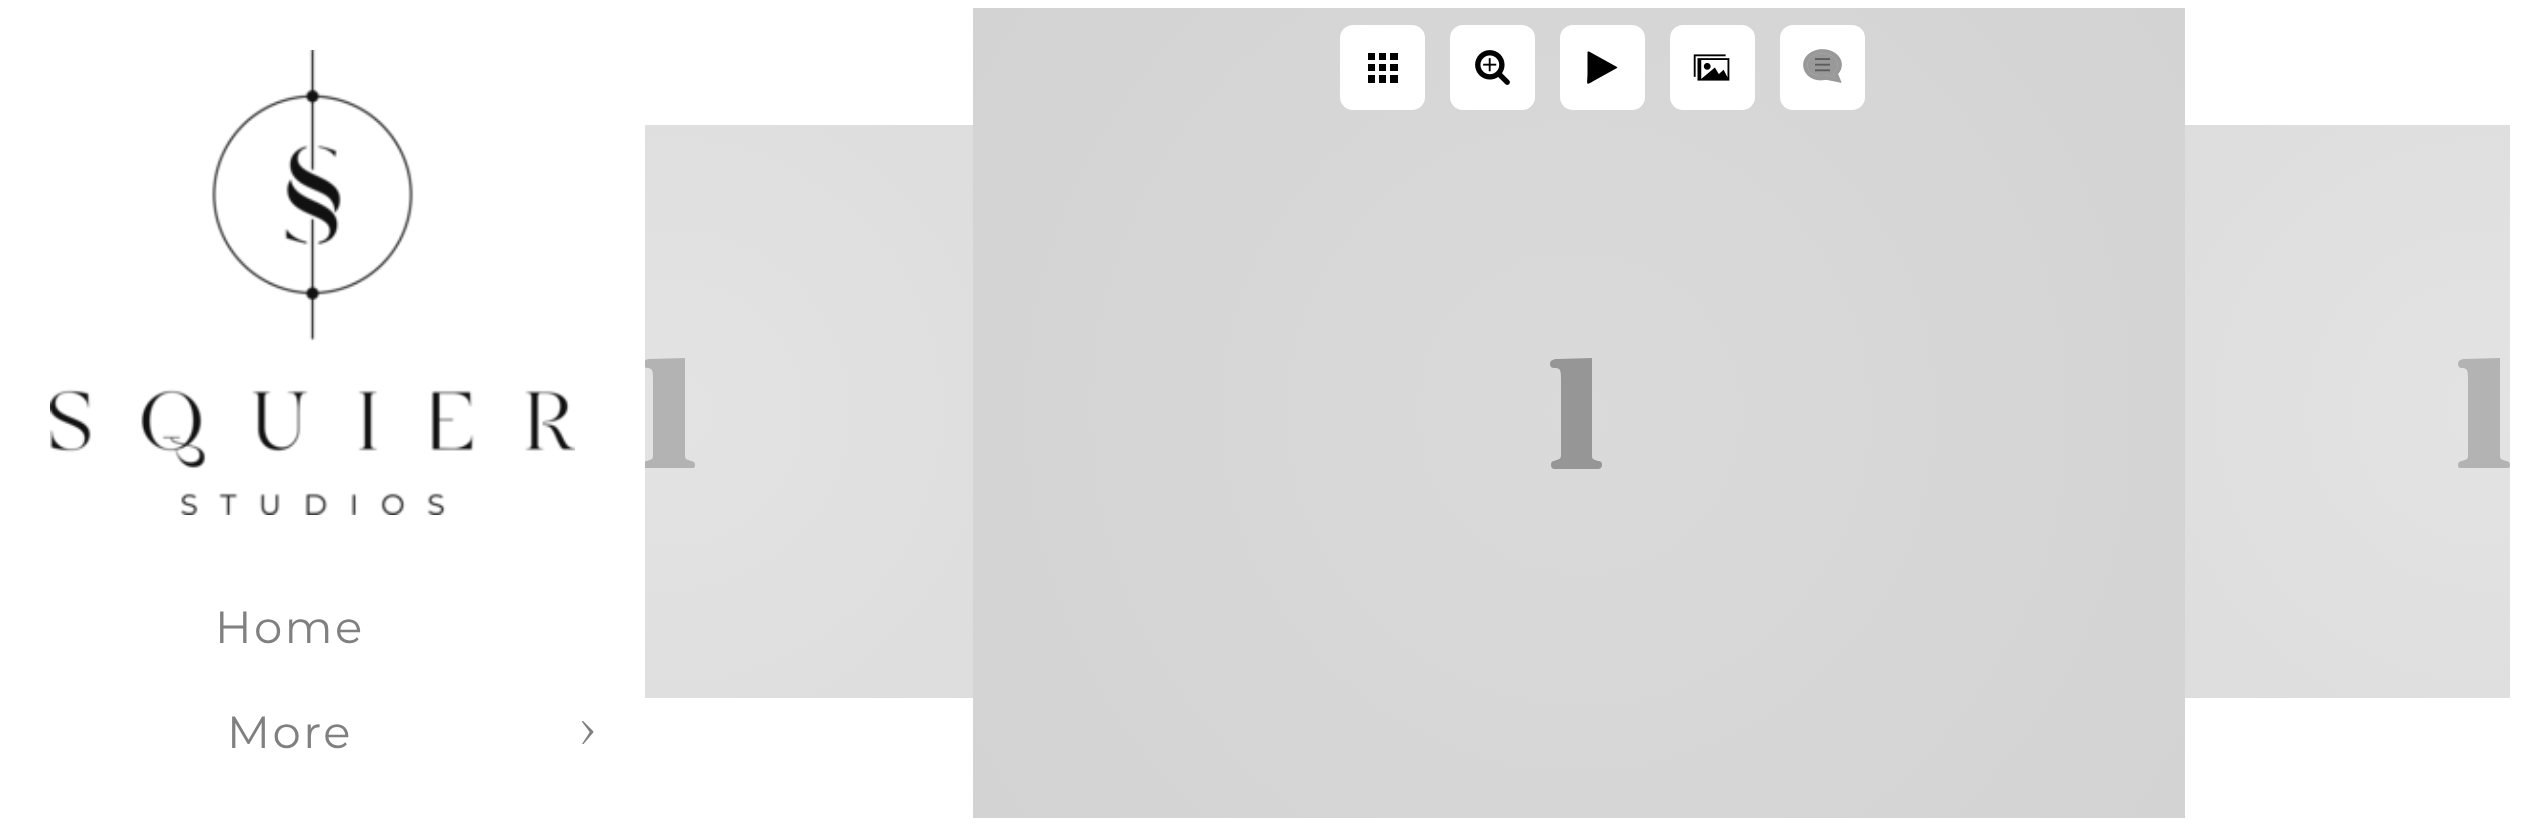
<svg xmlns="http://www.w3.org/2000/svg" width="2528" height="824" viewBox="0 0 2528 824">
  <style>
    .t1 { font: 100 45px Montserrat; letter-spacing: 2.5px; fill: #808080; }
  </style>
  <defs>
    <radialGradient id="g1" gradientUnits="userSpaceOnUse" cx="671" cy="411" r="516"><stop offset="0" stop-color="#e3e3e3"/><stop offset="1" stop-color="#dcdcdc"/></radialGradient>
    <clipPath id="clip1"><rect x="645" y="358" width="68" height="110"/></clipPath>
    <radialGradient id="g2" gradientUnits="userSpaceOnUse" cx="1579" cy="413" r="729"><stop offset="0" stop-color="#dadada"/><stop offset="1" stop-color="#d3d3d3"/></radialGradient>
    <radialGradient id="g3" gradientUnits="userSpaceOnUse" cx="2486" cy="411" r="516"><stop offset="0" stop-color="#e3e3e3"/><stop offset="1" stop-color="#dcdcdc"/></radialGradient>
    <clipPath id="clip2"><rect x="2440" y="358" width="70" height="110"/></clipPath>
  </defs>
  <rect width="100%" height="100%" fill="#fff"/>
  <rect x="645" y="125" width="328" height="573" fill="url(#g1)"/>
  <g clip-path="url(#clip1)">
    <path d="M685 454C685 459 685 459 691 461C693 461 695 462 695 465C695 470 689 469 688 469H650C649 469 643 470 643 465C643 462 645 461 647 461C653 459 653 459 653 454V379C653 369 652 369 648 368C646 368 643 368 643 364C643 359 649 359 650 359L685 358Z" fill="#b3b3b3"/>
  </g>
  <rect x="973" y="8" width="1212" height="810" fill="url(#g2)"/>
  <path d="M1592 454C1592 459 1592 459 1598 461C1601 461 1602 462 1602 465C1602 470 1596 469 1595 469H1558C1556 469 1551 470 1551 465C1551 462 1552 461 1554 461C1560 459 1561 459 1561 454V379C1561 369 1560 369 1556 368C1553 368 1550 368 1550 364C1550 359 1556 359 1558 359L1592 358Z" fill="#969696"/>
  <rect x="2185" y="125" width="325" height="573" fill="url(#g3)"/>
  <g clip-path="url(#clip2)">
    <path d="M2500 454C2500 459 2500 459 2506 461C2508 461 2510 462 2510 465C2510 470 2504 469 2503 469H2465C2464 469 2458 470 2458 465C2458 462 2460 461 2462 461C2468 459 2468 459 2468 454V379C2468 369 2467 369 2463 368C2461 368 2458 368 2458 364C2458 359 2464 359 2465 359L2500 358Z" fill="#b3b3b3"/>
  </g>
  <rect x="1340" y="25" width="85" height="85" rx="13" fill="#fff"/>
  <image x="1368" y="53" width="30" height="30" href="images/1.png"/>
  <rect x="1450" y="25" width="85" height="85" rx="13" fill="#fff"/>
  <image x="1475" y="50" width="35" height="35" href="images/2.png"/>
  <rect x="1560" y="25" width="85" height="85" rx="13" fill="#fff"/>
  <path d="M1617 68L1593.5 81C1585 86 1587.5 84.5 1587.5 72.5V52L1588 51.5H1589L1617 67C1617.5 67.5 1617 68 1617 68Z" fill="#000"/>
  <rect x="1670" y="25" width="85" height="85" rx="13" fill="#fff"/>
  <image x="1693" y="54" width="37" height="27" href="images/3.png"/>
  <rect x="1780" y="25" width="85" height="85" rx="13" fill="#fff"/>
  <image x="1803" y="49" width="39" height="34" href="images/4.png"/>
  <image x="50" y="50" width="525" height="465" href="images/5.png"/>
  <text x="215" y="643" class="t1">Home</text>
  <text x="227" y="748" class="t1">More</text>
  <image x="581" y="721" width="13" height="24" href="images/6.png"/>
</svg>
